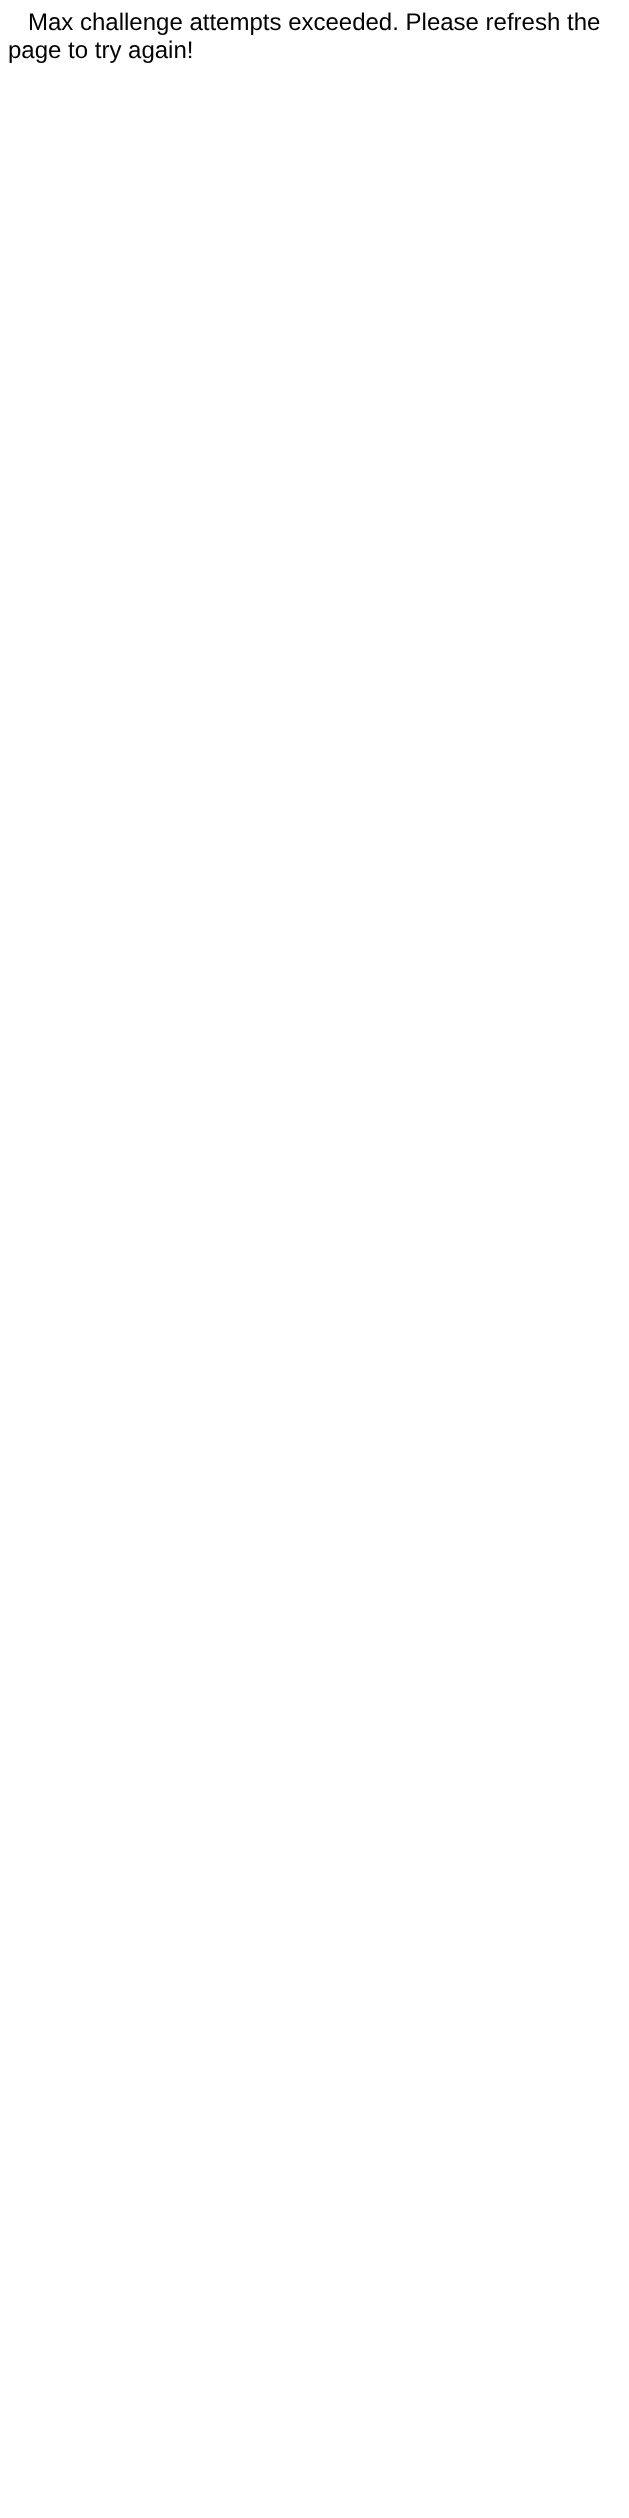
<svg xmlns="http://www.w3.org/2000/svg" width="629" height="2518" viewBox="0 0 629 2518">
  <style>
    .t1 { font: 24px Liberation Sans; fill: #000; }
  </style>
  <rect width="100%" height="100%" fill="#fff"/>
  <text x="28" y="30" class="t1">Max challenge attempts exceeded. Please refresh the</text>
  <text x="8" y="58" class="t1">page to try again!</text>
</svg>
